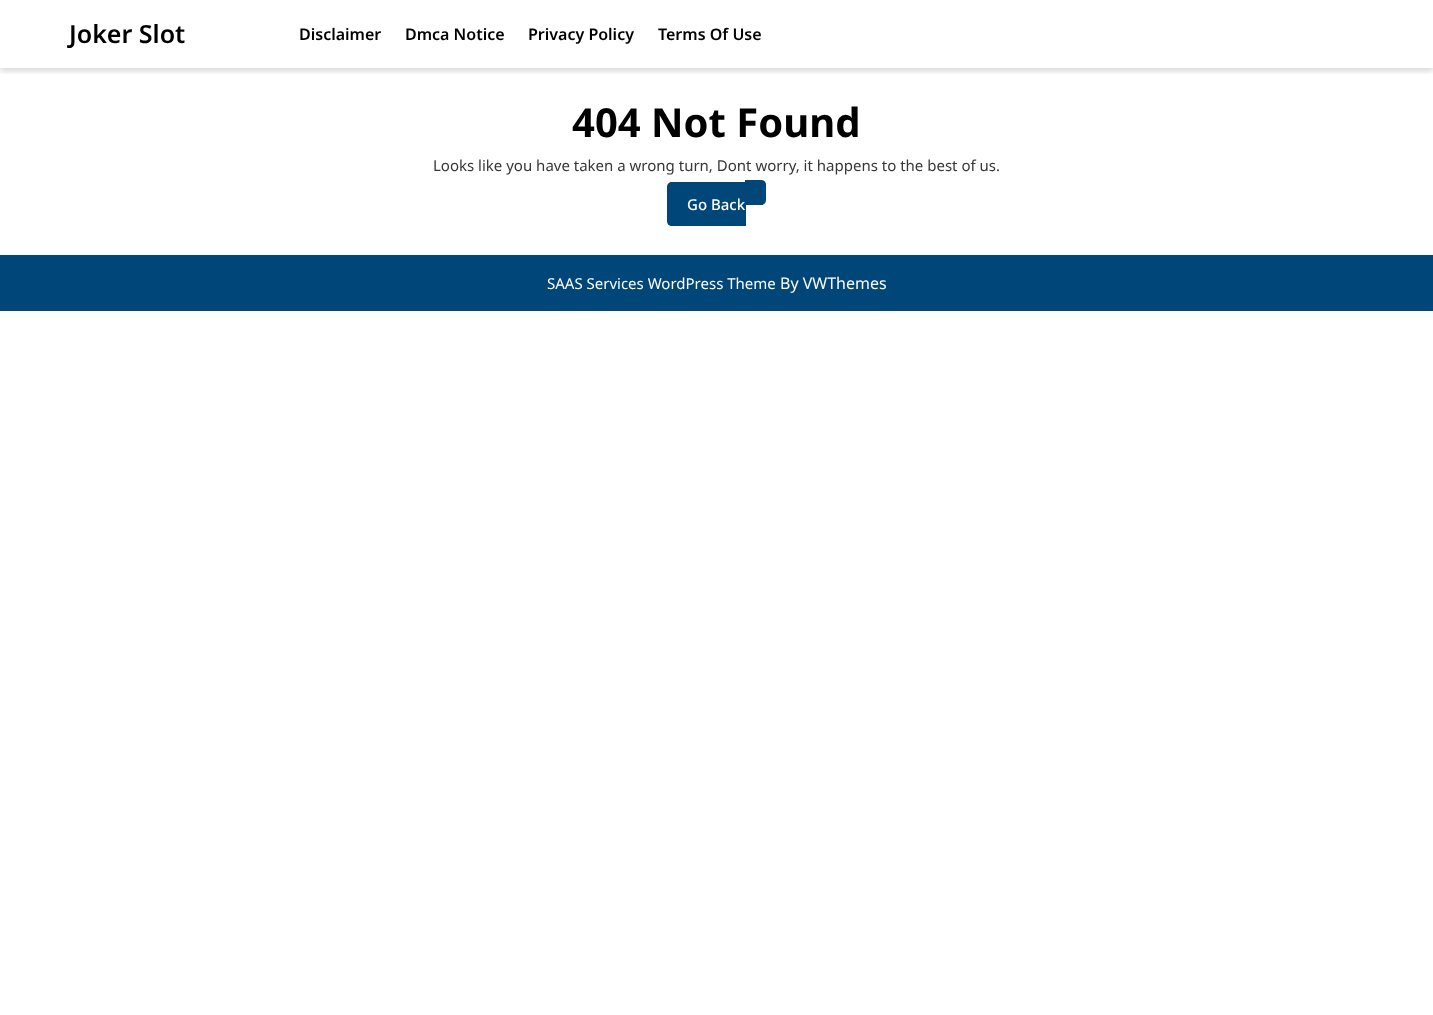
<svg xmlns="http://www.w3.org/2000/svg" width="1433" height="1015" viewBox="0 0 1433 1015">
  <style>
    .t1 { font: 600 25px Noto Sans; fill: #000; }
    .t2 { font: 600 16px Noto Sans; fill: #000; }
    .t3 { font: bold 40px Noto Sans; fill: #000; }
    .t4 { font: 15px Noto Sans; fill: #373737; }
    .t5 { font: 500 15px Noto Sans; fill: #fff; }
    .t6 { font: 15px Noto Sans; fill: #fff; }
    .t7 { font: 16px Noto Sans; fill: #fff; }
  </style>
  <defs>
    <clipPath id="clip1"><rect x="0" y="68" width="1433" height="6"/></clipPath>
  </defs>
  <rect width="100%" height="100%" fill="#fff"/>
  <g clip-path="url(#clip1)">
    <rect x="0" y="3" width="1433" height="68" fill="#00000029" filter="blur(3px)"/>
  </g>
  <text x="69" y="43" class="t1">Joker Slot</text>
  <text x="299" y="40" class="t2">Disclaimer</text>
  <text x="405" y="40" class="t2">Dmca Notice</text>
  <text x="528" y="40" class="t2">Privacy Policy</text>
  <text x="658" y="40" class="t2">Terms Of Use</text>
  <text x="572" y="137" class="t3">404 Not Found</text>
  <text x="433" y="171" class="t4">Looks like you have taken a wrong turn, Dont worry, it happens to the best of us.</text>
  <path d="M672 182H746V226H672C669 226 667 224 667 221V187C667 184 669 182 672 182Z" fill="#014678"/>
  <path d="M745 180H761C764 180 766 182 766 185V200C766 203 764 205 761 205H745Z" fill="#014678"/>
  <text x="687" y="210" class="t5">Go Back</text>
  <rect x="0" y="255" width="1433" height="56" fill="#014678"/>
  <text x="547" y="289" class="t6">SAAS Services WordPress Theme</text>
  <text x="780" y="289" class="t7">By VWThemes</text>
</svg>
